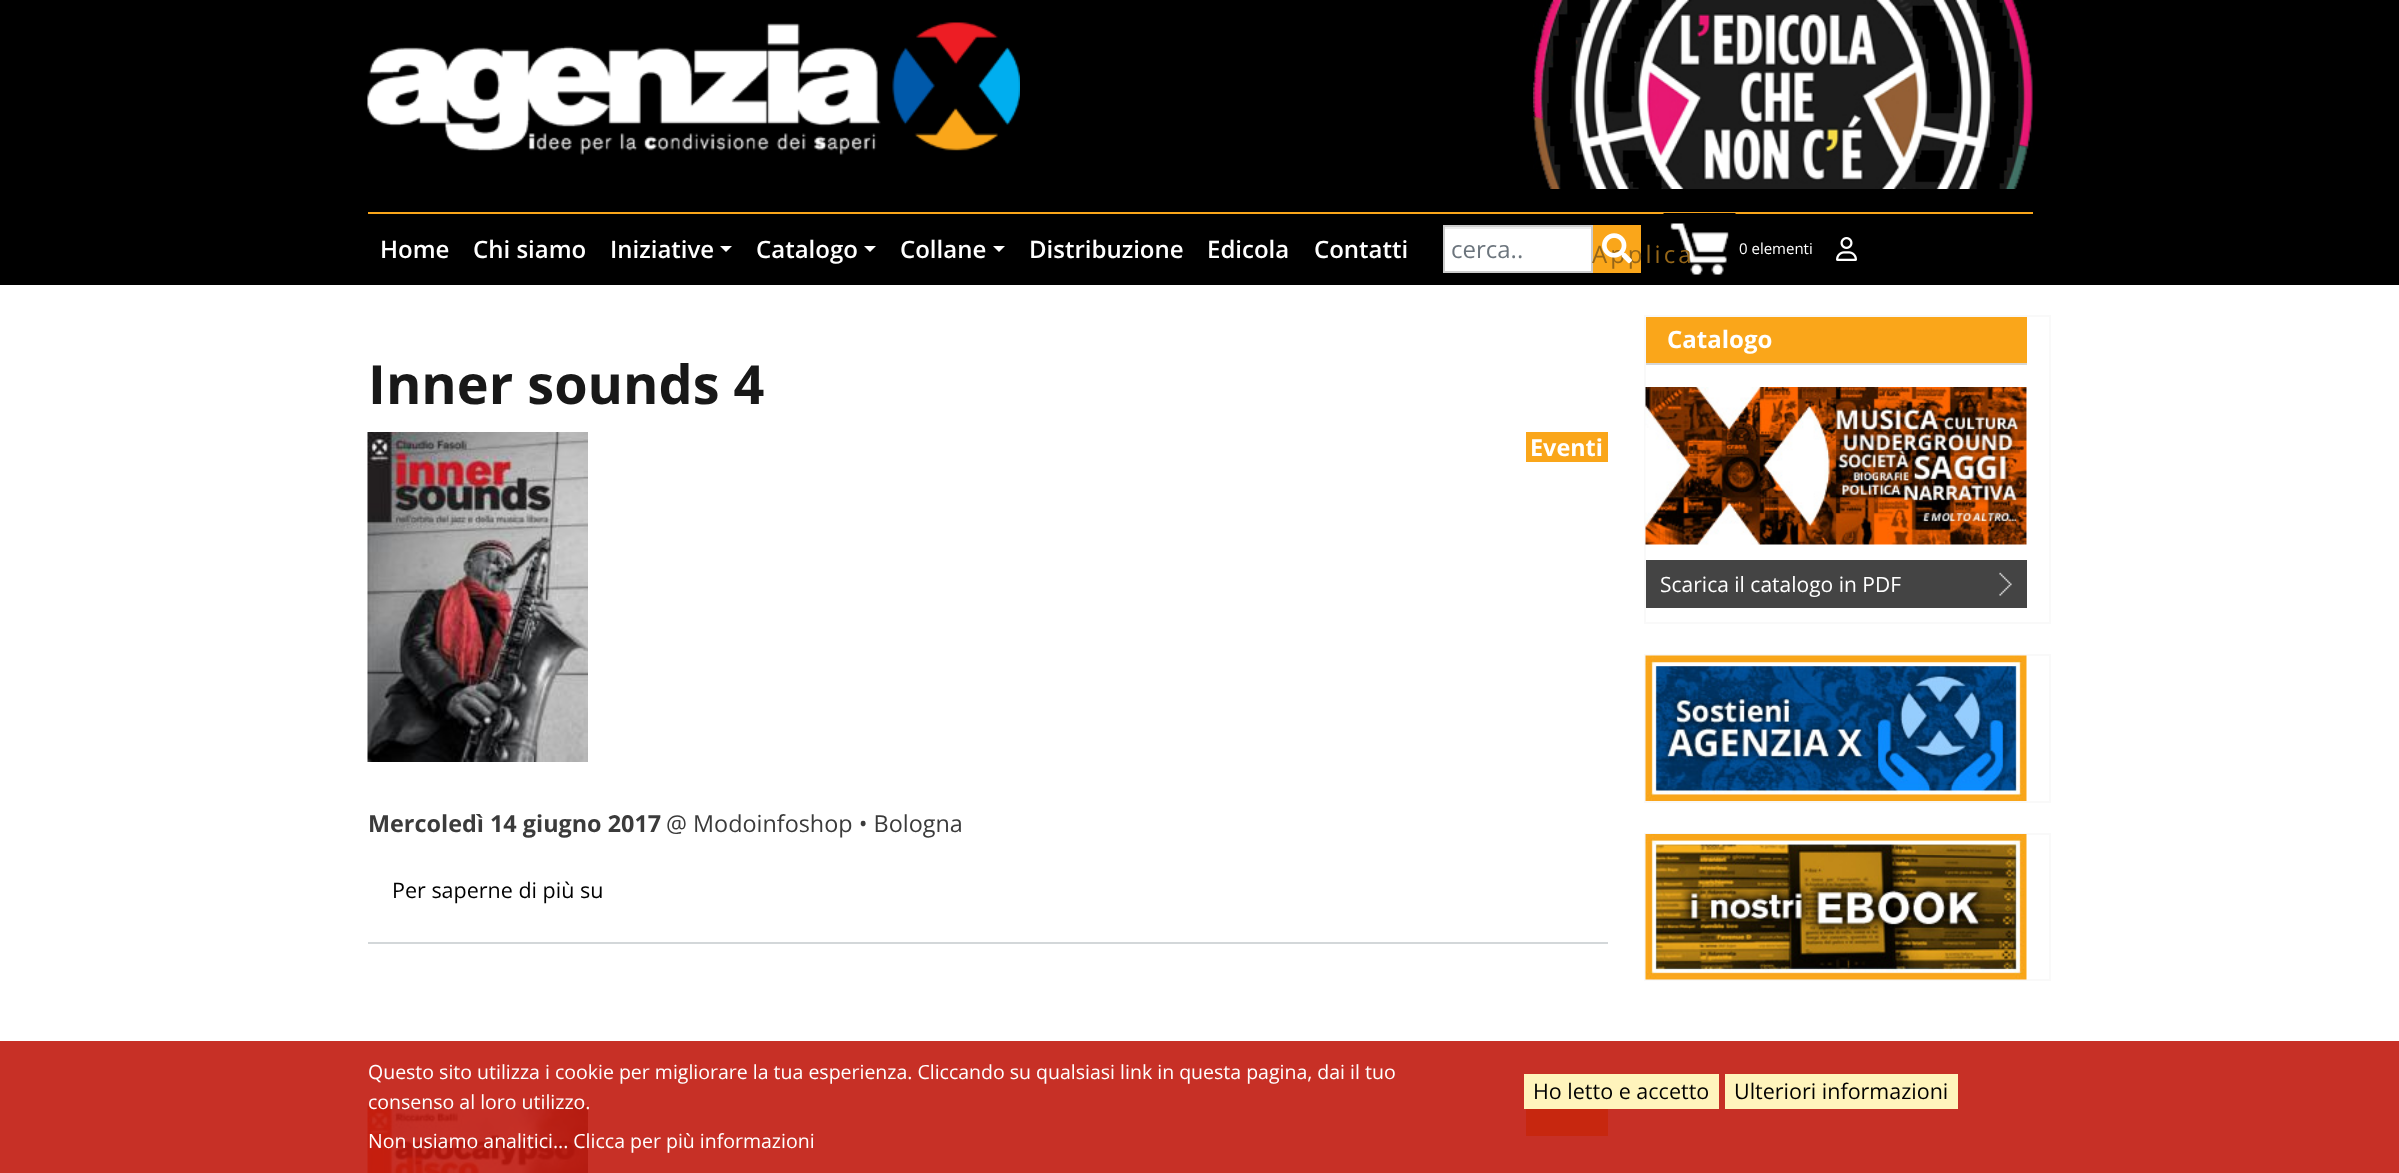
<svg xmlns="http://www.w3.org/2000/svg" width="2399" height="1173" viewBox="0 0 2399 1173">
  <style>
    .t1 { font: 600 24px Open Sans; fill: #fff; }
    .t2 { font: 24px Open Sans; fill: #6c757d; }
    .t3 { font: 24px Open Sans; letter-spacing: 3px; fill: #956618; }
    .t4 { font: 15px Open Sans; fill: #fff; }
    .t5 { font: bold 54px Open Sans; fill: #181818; }
    .t6 { font: bold 23.4px Open Sans; fill: #fff; }
    .t7 { font: bold 23.4px Open Sans; fill: #3b3b3b; }
    .t8 { font: 23.4px Open Sans; fill: #3b3b3b; }
    .t9 { font: 21.5px Open Sans; fill: #000; }
    .t10 { font: bold 24px Open Sans; fill: #fff; }
    .t11 { font: 21px Open Sans; fill: #fff; }
    .t12 { font: 19.5px Open Sans; fill: #fff; }
  </style>
  <rect width="100%" height="100%" fill="#fff"/>
  <rect x="0" y="0" width="2399" height="285" fill="#000"/>
  <image x="367" y="22" width="653" height="133" href="images/1.png"/>
  <image x="1533" y="0" width="500" height="189" href="images/2.png"/>
  <rect x="368" y="212" width="1665" height="2" fill="#faa61a"/>
  <text x="380" y="258" class="t1">Home</text>
  <text x="473" y="258" class="t1">Chi siamo</text>
  <text x="610" y="258" class="t1">Iniziative</text>
  <path d="M720 246H732L726 252Z" fill="#fff"/>
  <text x="756" y="258" class="t1">Catalogo</text>
  <path d="M864 246H876L870 252Z" fill="#fff"/>
  <text x="900" y="258" class="t1">Collane</text>
  <path d="M993 246H1005L999 252Z" fill="#fff"/>
  <text x="1029" y="258" class="t1">Distribuzione</text>
  <text x="1207" y="258" class="t1">Edicola</text>
  <text x="1314" y="258" class="t1">Contatti</text>
  <rect x="1445" y="229" width="146" height="42" fill="#fff"/>
  <rect x="1445" y="227" width="147" height="2" fill="#ececec"/>
  <rect x="1444" y="226" width="148" height="46" fill="none" stroke="#ccc" stroke-width="2"/>
  <text x="1451" y="258" class="t2">cerca..</text>
  <rect x="1593" y="225" width="48" height="48" fill="#faa61a"/>
  <image x="1663" y="213" width="73" height="62" href="images/4.png"/>
  <text x="1592" y="263" class="t3">Applica</text>
  <image x="1602" y="233" width="30" height="31" href="images/3.png"/>
  <text x="1739" y="254" class="t4">0 elementi</text>
  <image x="1836" y="237" width="21" height="24" href="images/5.png"/>
  <rect x="368" y="942" width="1240" height="2" fill="#d3d7d9"/>
  <text x="368" y="404" class="t5">Inner sounds 4</text>
  <image x="367" y="432" width="221" height="330" href="images/6.png"/>
  <rect x="1526" y="432" width="82" height="30" fill="#faa61a"/>
  <text x="1530" y="456" class="t6">Eventi</text>
  <text x="368" y="832" class="t7">Mercoledì 14 giugno 2017</text>
  <text x="666" y="832" class="t8">@ Modoinfoshop • Bologna</text>
  <text x="392" y="898" class="t9">Per saperne di più su</text>
  <image x="367" y="1105" width="221" height="68" href="images/7.png"/>
  <rect x="1526" y="1109" width="82" height="27" fill="#faa61a"/>
  <rect x="1645" y="316" width="405" height="307" fill="none" stroke="#f9f9f9" stroke-width="2"/>
  <rect x="1646" y="317" width="381" height="46" fill="#faa61a"/>
  <rect x="1646" y="363" width="381" height="2" fill="#d6d6d6"/>
  <text x="1667" y="348" class="t10">Catalogo</text>
  <image x="1645" y="387" width="382" height="158" href="images/8.png"/>
  <rect x="1646" y="560" width="381" height="48" fill="#444"/>
  <image x="1999" y="572" width="13" height="24" href="images/9.png"/>
  <text x="1660" y="592" class="t11">Scarica il catalogo in PDF</text>
  <rect x="1645" y="655" width="405" height="147" fill="none" stroke="#f9f9f9" stroke-width="2"/>
  <image x="1645" y="655" width="382" height="146" href="images/10.png"/>
  <rect x="1645" y="834" width="405" height="146" fill="none" stroke="#f9f9f9" stroke-width="2"/>
  <image x="1645" y="834" width="382" height="146" href="images/11.png"/>
  <rect x="0" y="1041" width="2399" height="132" fill="#c11a0ee6"/>
  <text x="368" y="1079" class="t12">Questo sito utilizza i cookie per migliorare la tua esperienza. Cliccando su qualsiasi link in questa pagina, dai il tuo</text>
  <text x="368" y="1109" class="t12">consenso al loro utilizzo.</text>
  <text x="368" y="1148" class="t12">Non usiamo analitici... Clicca per più informazioni</text>
  <rect x="1524" y="1074" width="195" height="35" fill="#fff4bc"/>
  <text x="1533" y="1099" class="t9">Ho letto e accetto</text>
  <rect x="1725" y="1074" width="233" height="35" fill="#fff4bc"/>
  <text x="1734" y="1099" class="t9">Ulteriori informazioni</text>
</svg>
